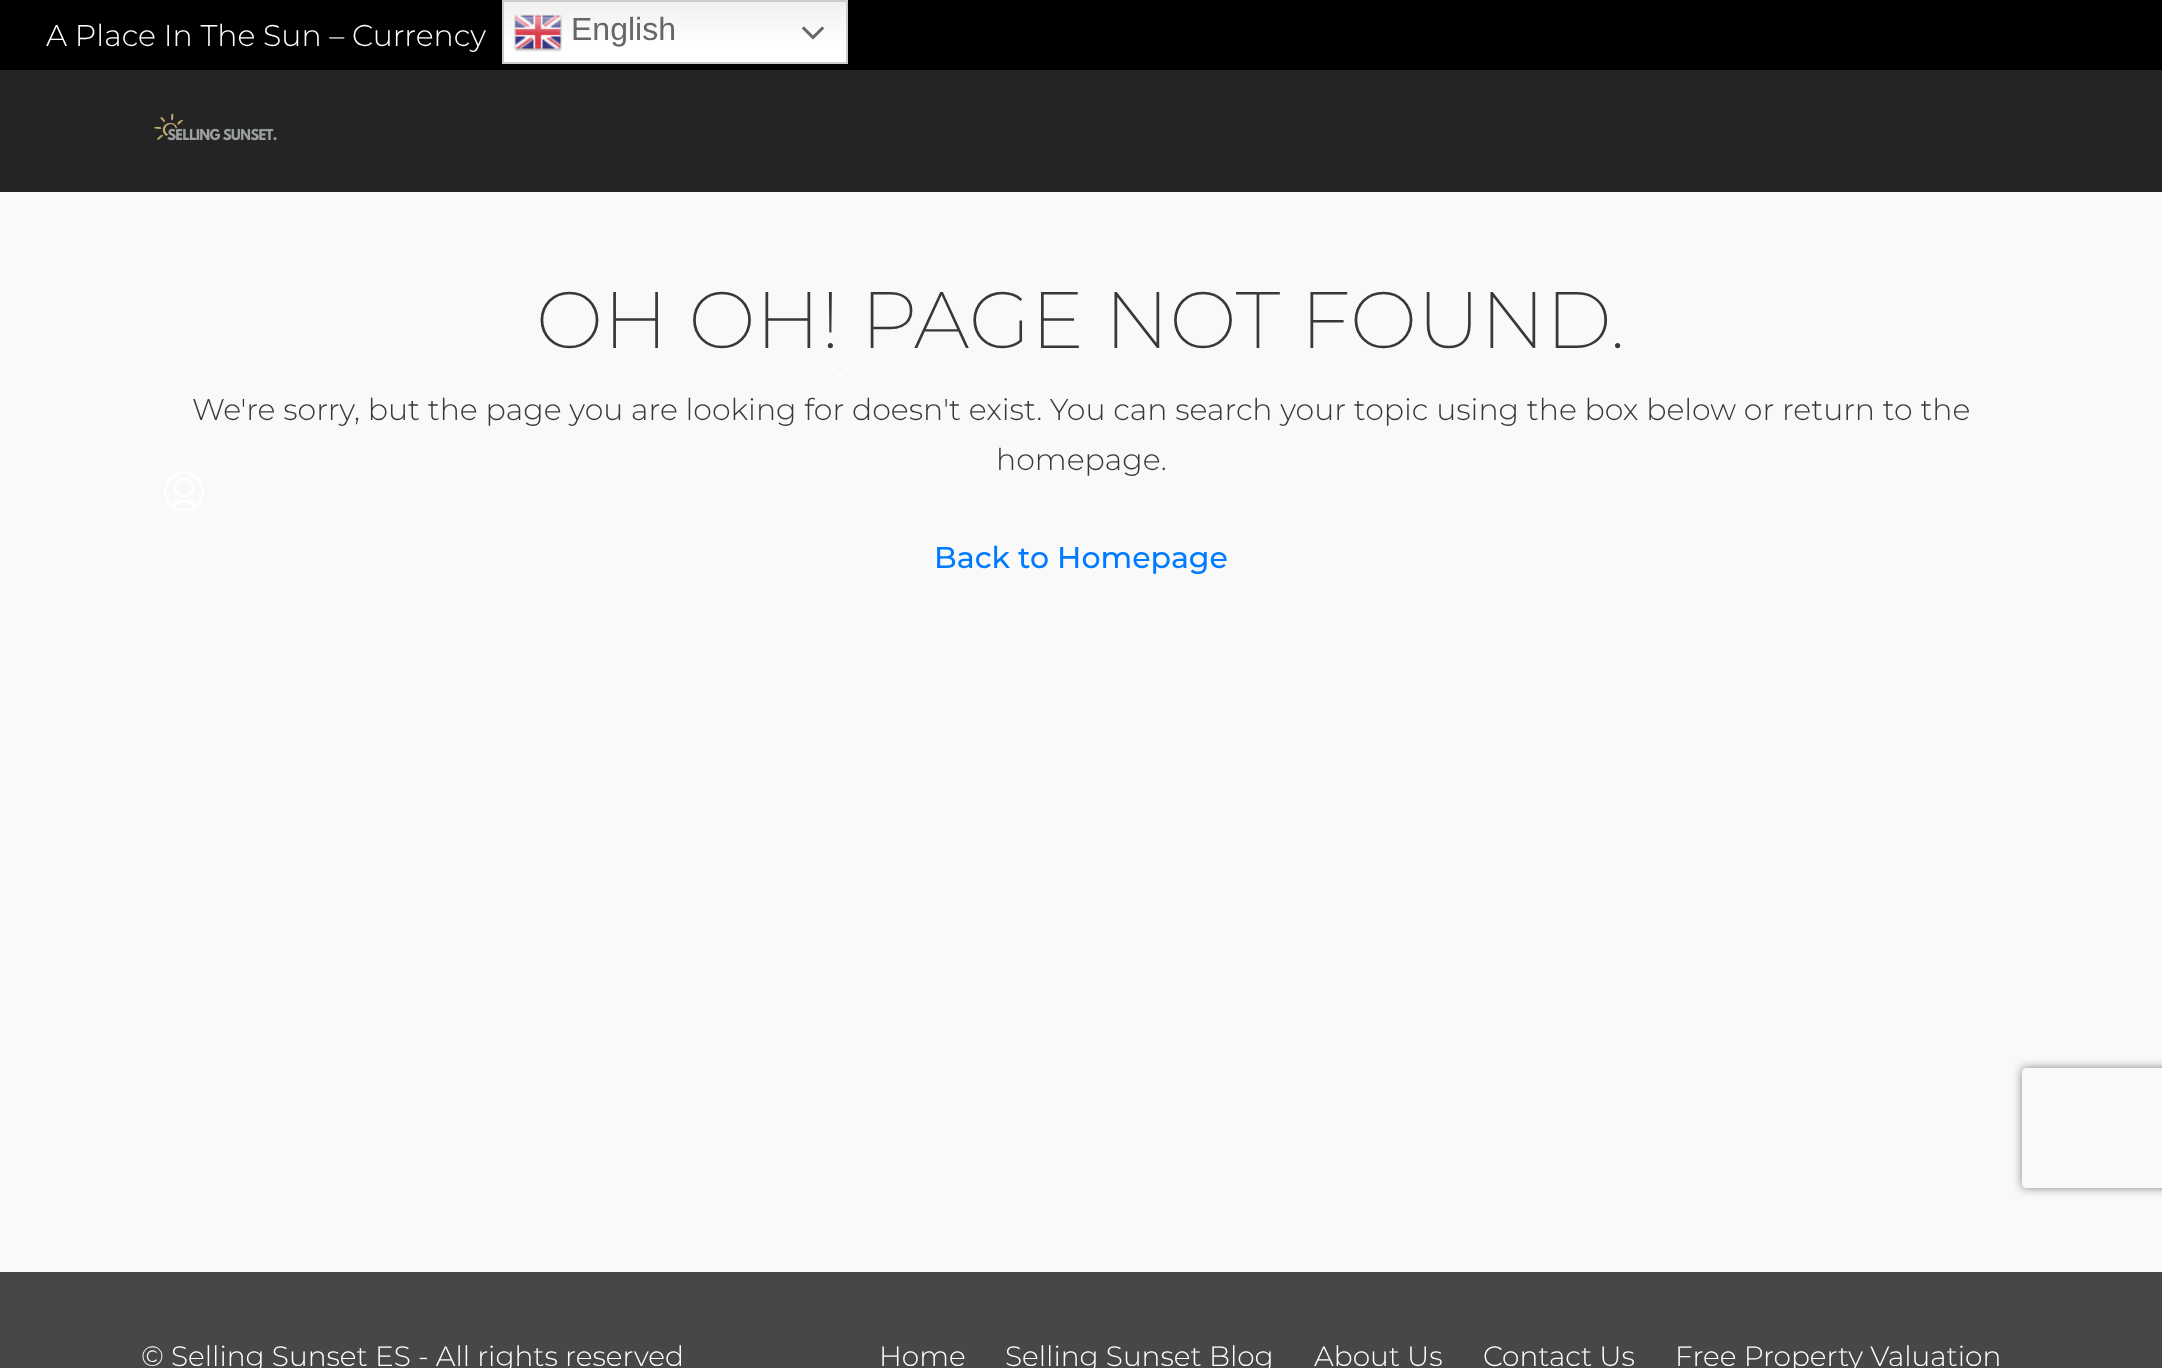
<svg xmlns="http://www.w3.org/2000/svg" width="2162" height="1368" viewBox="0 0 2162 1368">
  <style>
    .t1 { font: 300 30px Montserrat; fill: #fff; }
    .t2 { font: 32px Liberation Sans; fill: #666; }
    .t3 { font: 200 80px Montserrat; fill: #383838; }
    .t4 { font: 300 30px Montserrat; fill: #383838; }
    .t5 { font: 500 30px Montserrat; fill: #007bff; }
    .t6 { font: 300 28px Montserrat; fill: #fff; }
  </style>
  <defs>
    <linearGradient id="g1" gradientUnits="userSpaceOnUse" x1="675" y1="0" x2="675" y2="64"><stop offset="0" stop-color="#efefef"/><stop offset="0.7" stop-color="#fff"/></linearGradient>
    <clipPath id="clip1"><path d="M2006 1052H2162V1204H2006ZM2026 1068H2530C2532 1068 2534 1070 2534 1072V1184C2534 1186 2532 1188 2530 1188H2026C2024 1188 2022 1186 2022 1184V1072C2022 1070 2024 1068 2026 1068Z" clip-rule="evenodd"/></clipPath>
  </defs>
  <rect width="100%" height="100%" fill="#f9f9f9"/>
  <rect x="0" y="0" width="2162" height="70" fill="#000"/>
  <text x="46" y="46" class="t1">A Place In The Sun – Currency</text>
  <rect x="504" y="2" width="342" height="60" fill="url(#g1)"/>
  <rect x="503" y="1" width="344" height="62" fill="none" stroke="#ccc" stroke-width="2"/>
  <image x="514" y="14" width="48" height="38" href="images/1.png"/>
  <text x="571" y="40" class="t2">English</text>
  <image x="802" y="26" width="22" height="14" href="images/2.png"/>
  <rect x="0" y="70" width="2162" height="122" fill="#242424"/>
  <image x="154" y="113" width="123" height="28" href="images/3.png"/>
  <image x="426" y="365" width="20" height="10" href="images/4.png"/>
  <image x="830" y="365" width="20" height="10" href="images/4.png"/>
  <image x="164" y="472" width="40" height="39" href="images/5.png"/>
  <text x="536" y="348" class="t3">OH OH! PAGE NOT FOUND.</text>
  <text x="192" y="420" class="t4">We're sorry, but the page you are looking for doesn't exist. You can search your topic using the box below or return to the</text>
  <text x="996" y="470" class="t4">homepage.</text>
  <text x="934" y="568" class="t5">Back to Homepage</text>
  <g clip-path="url(#clip1)">
    <rect x="2022" y="1068" width="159" height="120" rx="4" fill="#808080" filter="blur(5px)"/>
  </g>
  <rect x="0" y="1272" width="2162" height="96" fill="#474747"/>
  <text x="141" y="1366" class="t6">© Selling Sunset ES - All rights reserved</text>
  <text x="879" y="1366" class="t6">Home</text>
  <text x="1005" y="1366" class="t6">Selling Sunset Blog</text>
  <text x="1314" y="1366" class="t6">About Us</text>
  <text x="1483" y="1366" class="t6">Contact Us</text>
  <text x="1675" y="1366" class="t6">Free Property Valuation</text>
</svg>
